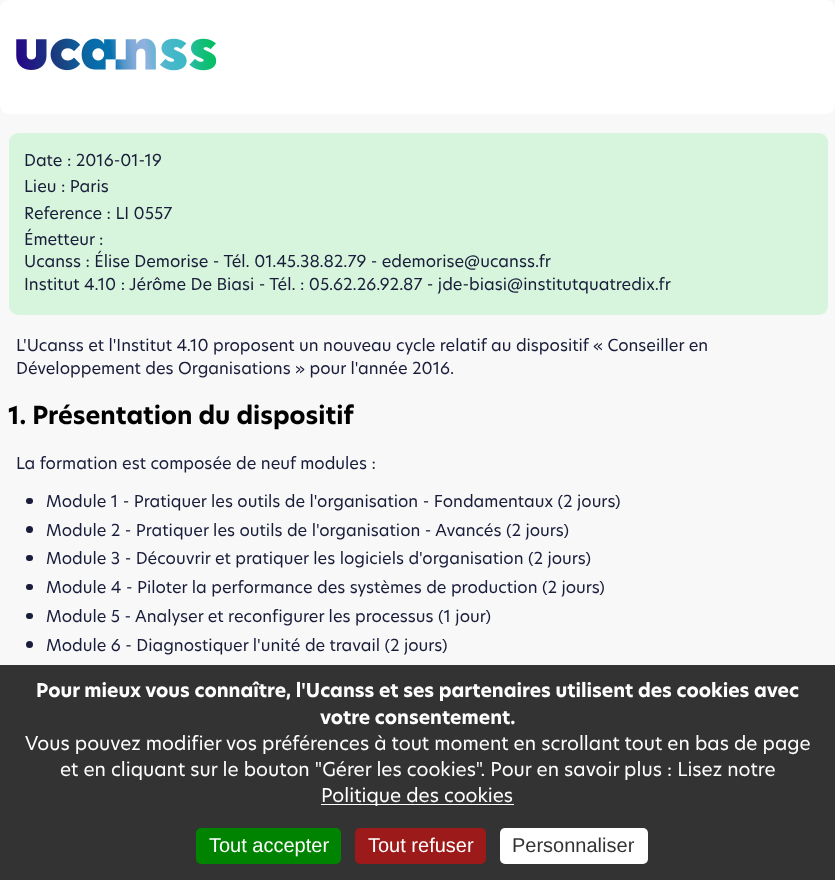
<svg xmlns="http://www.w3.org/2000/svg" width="835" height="880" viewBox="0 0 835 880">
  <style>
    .t1 { font: 16.25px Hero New; fill: #191d3a; }
    .t2 { font: bold 24.4px Hero New; fill: #000; }
    .t3 { font: bold 18.75px Hero New; fill: #fff; }
    .t4 { font: 18.75px Hero New; fill: #fff; }
    .t5 { font: 20px Liberation Sans; fill: #fff; }
    .t6 { font: 20px Liberation Sans; fill: #333; }
  </style>
  <rect width="100%" height="100%" fill="#f8f8f8"/>
  <rect x="0" y="0" width="835" height="114" rx="9" fill="#fff"/>
  <image x="16" y="38" width="200" height="33" href="images/1.png"/>
  <rect x="9" y="133" width="819" height="182" rx="9" fill="#d7f5dc"/>
  <text x="24" y="166" class="t1">Date : 2016-01-19</text>
  <text x="24" y="192" class="t1">Lieu : Paris</text>
  <text x="24" y="219" class="t1">Reference : LI 0557</text>
  <text x="24" y="245" class="t1">Émetteur :</text>
  <text x="24" y="267" class="t1">Ucanss : Élise Demorise - Tél. 01.45.38.82.79 - edemorise@ucanss.fr</text>
  <text x="24" y="290" class="t1">Institut 4.10 : Jérôme De Biasi - Tél. : 05.62.26.92.87 - jde-biasi@institutquatredix.fr</text>
  <text x="16" y="351" class="t1">L'Ucanss et l'Institut 4.10 proposent un nouveau cycle relatif au dispositif « Conseiller en</text>
  <text x="16" y="374" class="t1">Développement des Organisations » pour l'année 2016.</text>
  <text x="8" y="424" class="t2">1. Présentation du dispositif</text>
  <text x="16" y="469" class="t1">La formation est composée de neuf modules :</text>
  <rect x="26" y="498" width="7" height="6" rx="3" fill="#191d3a"/>
  <text x="46" y="507" class="t1">Module 1 - Pratiquer les outils de l'organisation - Fondamentaux (2 jours)</text>
  <circle cx="29.5" cy="529.5" r="3.5" fill="#191d3a"/>
  <text x="46" y="536" class="t1">Module 2 - Pratiquer les outils de l'organisation - Avancés (2 jours)</text>
  <rect x="26" y="555" width="7" height="6" rx="3" fill="#191d3a"/>
  <text x="46" y="564" class="t1">Module 3 - Découvrir et pratiquer les logiciels d'organisation (2 jours)</text>
  <rect x="26" y="584" width="7" height="6" rx="3" fill="#191d3a"/>
  <text x="46" y="593" class="t1">Module 4 - Piloter la performance des systèmes de production (2 jours)</text>
  <rect x="26" y="613" width="7" height="6" rx="3" fill="#191d3a"/>
  <text x="46" y="622" class="t1">Module 5 - Analyser et reconfigurer les processus (1 jour)</text>
  <circle cx="29.5" cy="644.5" r="3.5" fill="#191d3a"/>
  <text x="46" y="651" class="t1">Module 6 - Diagnostiquer l'unité de travail (2 jours)</text>
  <rect x="0" y="665" width="835" height="215" fill="#333"/>
  <text x="36" y="697" class="t3">Pour mieux vous connaître, l'Ucanss et ses partenaires utilisent des cookies avec</text>
  <text x="320" y="724" class="t3">votre consentement.</text>
  <text x="25" y="750" class="t4">Vous pouvez modifier vos préférences à tout moment en scrollant tout en bas de page</text>
  <text x="60" y="776" class="t4">et en cliquant sur le bouton "Gérer les cookies". Pour en savoir plus : Lisez notre</text>
  <rect x="321" y="804" width="193" height="1" fill="#fff"/>
  <text x="321" y="802" class="t4">Politique des cookies</text>
  <rect x="196" y="828" width="145" height="36" rx="5" fill="#008300"/>
  <text x="209" y="852" class="t5">Tout accepter</text>
  <rect x="355" y="828" width="131" height="36" rx="5" fill="#9c1a1a"/>
  <text x="368" y="852" class="t5">Tout refuser</text>
  <rect x="500" y="828" width="148" height="36" rx="5" fill="#fff"/>
  <text x="512" y="852" class="t6">Personnaliser</text>
</svg>
